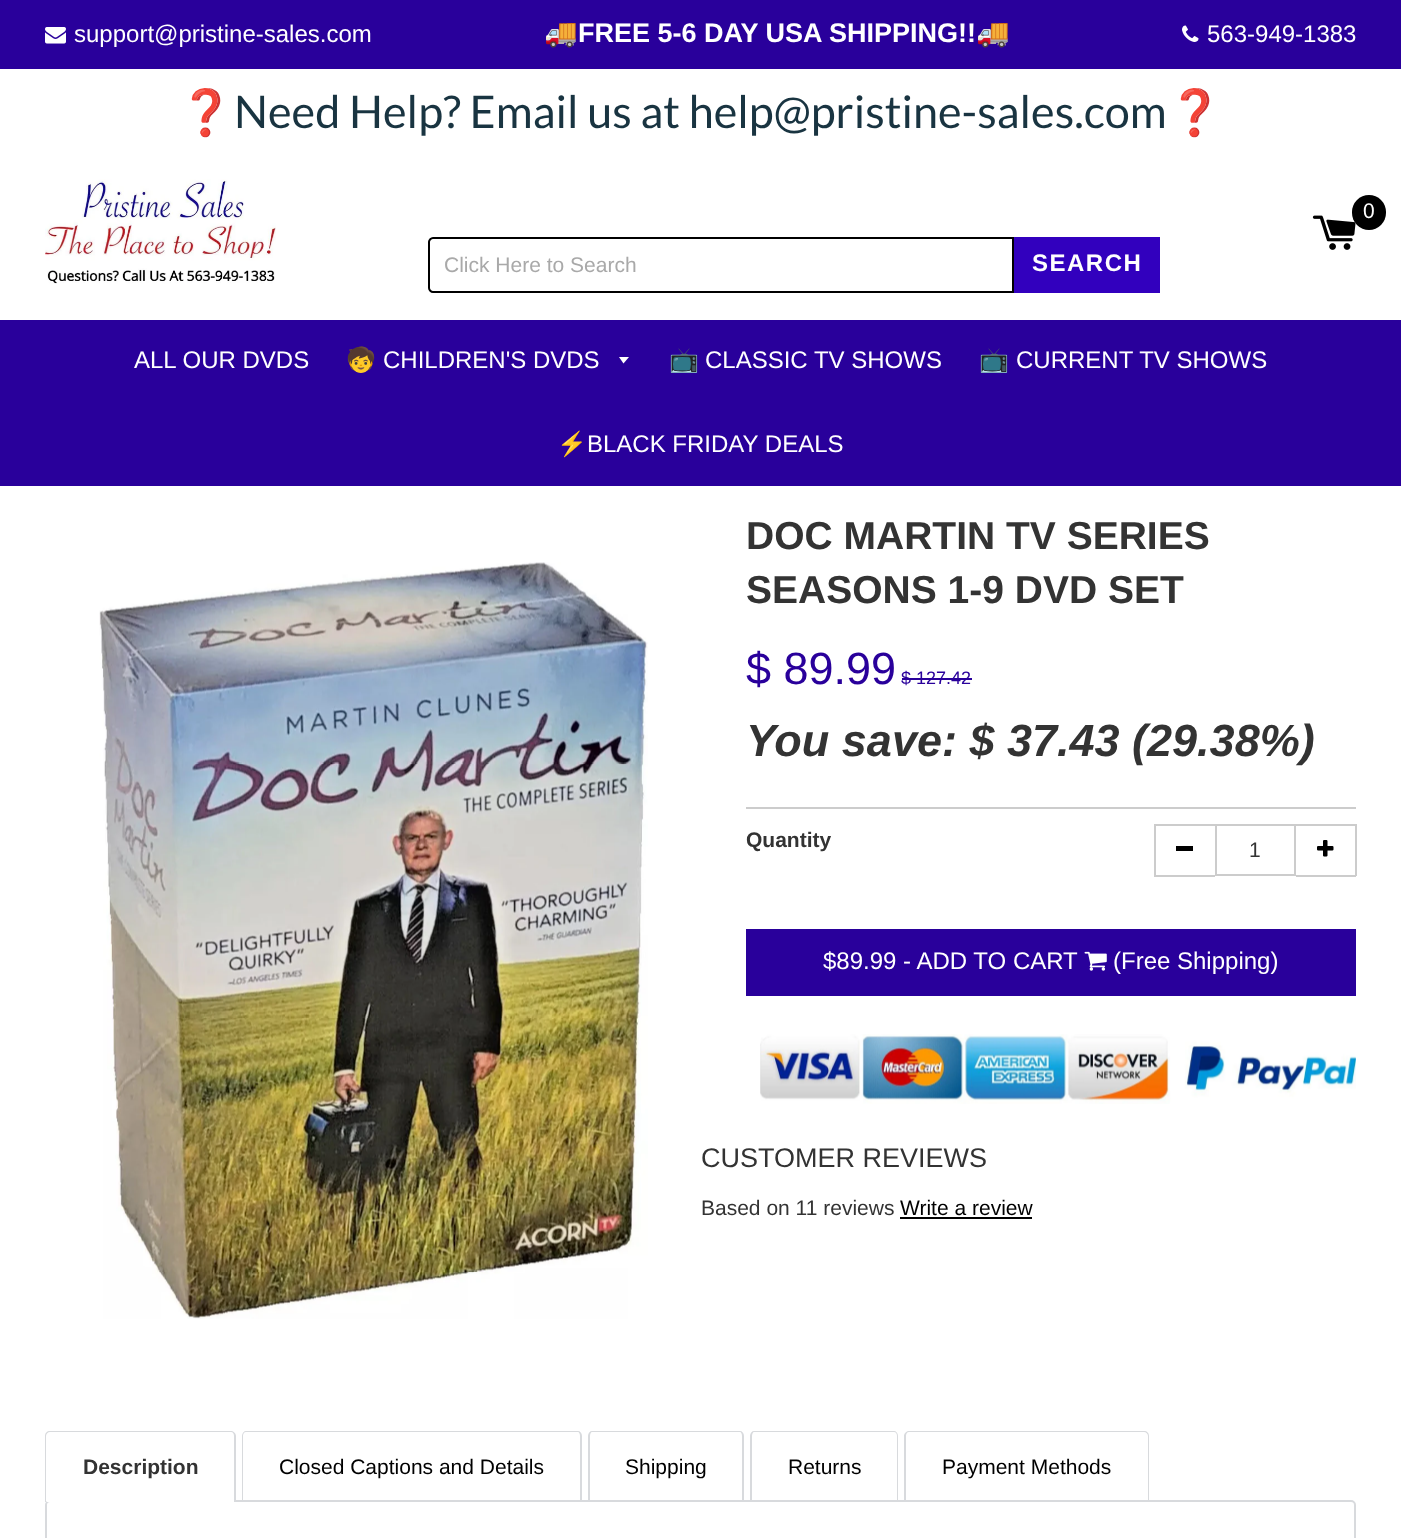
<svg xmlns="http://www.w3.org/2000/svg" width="1401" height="1538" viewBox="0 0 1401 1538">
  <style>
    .t1 { font: 24px Liberation Sans; fill: #fff; }
    .t2 { font: bold 27px Noto Color Emoji; fill: #fff; }
    .t3 { font: bold 27px Liberation Sans; fill: #fff; }
    .t4 { font: 45px Noto Color Emoji; fill: #193441; }
    .t5 { font: 45px Lato; fill: #193441; }
    .t6 { font: 21px Liberation Sans; fill: #fff; }
    .t7 { font: 21px Liberation Sans; fill: #a9a9a9; }
    .t8 { font: bold 24px Liberation Sans; letter-spacing: 1.5px; fill: #fff; }
    .t9 { font: 24px Noto Color Emoji; fill: #fff; }
    .t10 { font: bold 39px Liberation Sans; fill: #333; }
    .t11 { font: 45px Liberation Sans; fill: #29009b; }
    .t12 { font: 18px Liberation Sans; fill: #29009b; }
    .t13 { font: italic bold 45px Liberation Sans; fill: #333; }
    .t14 { font: bold 21px Liberation Sans; fill: #333; }
    .t15 { font: 21px Liberation Sans; fill: #333; }
    .t16 { font: 27px Liberation Sans; fill: #333; }
    .t17 { font: 21px Liberation Sans; fill: #000; }
  </style>
  <rect width="100%" height="100%" fill="#fff"/>
  <rect x="0" y="0" width="1401" height="69" fill="#29009b"/>
  <image x="45" y="27" width="21" height="17" href="images/1.png"/>
  <text x="74" y="42" class="t1">support@pristine-sales.com</text>
  <text x="544" y="42" class="t2">🚚</text>
  <text x="578" y="42" class="t3">FREE 5-6 DAY USA SHIPPING!!</text>
  <text x="976" y="42" class="t2">🚚</text>
  <image x="1182" y="25" width="17" height="17" href="images/2.png"/>
  <text x="1207" y="42" class="t1">563-949-1383</text>
  <text x="178" y="128" class="t4">❓</text>
  <text x="234" y="128" class="t5">Need Help? Email us at help@pristine-sales.com</text>
  <text x="1167" y="128" class="t4">❓</text>
  <image x="45" y="179" width="231" height="105" href="images/3.png"/>
  <image x="1312" y="215" width="44" height="35" href="images/4.png"/>
  <rect x="1352" y="195" width="34" height="35" rx="17" fill="#000"/>
  <text x="1363" y="218" class="t6">0</text>
  <path d="M433 238H1013V292H433C431 292 429 290 429 288V242C429 240 431 238 433 238Z" fill="none" stroke="#000" stroke-width="2"/>
  <text x="444" y="272" class="t7">Click Here to Search</text>
  <rect x="1014" y="237" width="146" height="56" fill="#3200be"/>
  <text x="1032" y="271" class="t8">SEARCH</text>
  <rect x="0" y="320" width="1401" height="166" fill="#29009b"/>
  <text x="134" y="368" class="t1">ALL OUR DVDS</text>
  <text x="346" y="368" class="t9">🧒</text>
  <text x="383" y="368" class="t1">CHILDREN'S DVDS</text>
  <path d="M619 357L623.5 363.5L629 357Z" fill="#fff"/>
  <text x="669" y="368" class="t9">📺</text>
  <text x="705" y="368" class="t1">CLASSIC TV SHOWS</text>
  <text x="979" y="368" class="t9">📺</text>
  <text x="1016" y="368" class="t1">CURRENT TV SHOWS</text>
  <text x="557" y="452" class="t9">⚡</text>
  <text x="587" y="452" class="t1">BLACK FRIDAY DEALS</text>
  <image x="99" y="562" width="549" height="757" href="images/5.png"/>
  <text x="746" y="549" class="t10">DOC MARTIN TV SERIES</text>
  <text x="746" y="603" class="t10">SEASONS 1-9 DVD SET</text>
  <rect x="746" y="807" width="610" height="2" fill="#ccc"/>
  <text x="746" y="684" class="t11">$ 89.99</text>
  <text x="901" y="684" class="t12">$ 127.42</text>
  <rect x="902" y="678" width="70" height="2" fill="#29009b"/>
  <text x="746" y="756" class="t13">You save: $ 37.43 (29.38%)</text>
  <text x="746" y="847" class="t14">Quantity</text>
  <rect x="1154" y="824" width="61" height="2" fill="#ccc"/>
  <rect x="1154" y="875" width="61" height="2" fill="#ccc"/>
  <rect x="1154" y="824" width="2" height="52" fill="#ccc"/>
  <rect x="1176" y="846" width="17" height="5" fill="#000"/>
  <rect x="1216" y="825" width="79" height="50" fill="none" stroke="#ccc" stroke-width="2"/>
  <text x="1249" y="857" class="t15">1</text>
  <rect x="1296" y="824" width="60" height="2" fill="#ccc"/>
  <rect x="1355" y="824" width="2" height="52" fill="#ccc"/>
  <rect x="1296" y="875" width="60" height="2" fill="#ccc"/>
  <image x="1317" y="840" width="17" height="17" href="images/6.png"/>
  <rect x="746" y="929" width="610" height="67" fill="#29009b"/>
  <text x="823" y="969" class="t1">$89.99 - ADD TO CART</text>
  <image x="1084" y="951" width="23" height="20" href="images/7.png"/>
  <text x="1113" y="969" class="t1">(Free Shipping)</text>
  <image x="760" y="1034" width="596" height="70" href="images/8.png"/>
  <text x="701" y="1167" class="t16">CUSTOMER REVIEWS</text>
  <text x="701" y="1215" class="t15">Based on 11 reviews</text>
  <text x="900" y="1215" class="t17">Write a review</text>
  <rect x="900" y="1217" width="132" height="2" fill="#000"/>
  <rect x="46" y="1501" width="1309" height="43" rx="4" fill="none" stroke="#d8dadd" stroke-width="2"/>
  <path d="M50 1433H231C232.5 1433 234 1434.5 234 1436V1502H47V1436C47 1434.5 48.5 1433 50 1433Z" fill="#fff"/>
  <path d="M50 1431H231C233 1431 236 1433 236 1436V1502H45V1436C45 1433 47 1431 50 1431ZM50 1432H231C233 1432 234 1434 234 1436V1502H46V1436C46 1434 48 1432 50 1432Z" fill="#d8dadd" fill-rule="evenodd"/>
  <text x="83" y="1474" class="t14">Description</text>
  <path d="M246 1431H578C580 1431 582 1433 582 1436V1502H242V1436C242 1433 244 1431 246 1431ZM246 1432H578C579 1432 580 1434 580 1436V1502H243V1436C243 1434 244 1432 246 1432Z" fill="#d8dadd" fill-rule="evenodd"/>
  <text x="279" y="1474" class="t17">Closed Captions and Details</text>
  <path d="M592 1431H740C742 1431 744 1433 744 1436V1502H588V1436C588 1433 590 1431 592 1431ZM592 1432H740C741 1432 742 1434 742 1436V1502H590V1436C590 1434 591 1432 592 1432Z" fill="#d8dadd" fill-rule="evenodd"/>
  <text x="625" y="1474" class="t17">Shipping</text>
  <path d="M754 1431H894C896 1431 898 1433 898 1436V1502H750V1436C750 1433 752 1431 754 1431ZM754 1432H894C896 1432 897 1434 897 1436V1502H752V1436C752 1434 753 1432 754 1432Z" fill="#d8dadd" fill-rule="evenodd"/>
  <text x="788" y="1474" class="t17">Returns</text>
  <path d="M909 1431H1144C1147 1431 1149 1433 1149 1436V1502H904V1436C904 1433 907 1431 909 1431ZM909 1432H1144C1146 1432 1148 1434 1148 1436V1502H906V1436C906 1434 907 1432 909 1432Z" fill="#d8dadd" fill-rule="evenodd"/>
  <text x="942" y="1474" class="t17">Payment Methods</text>
</svg>
